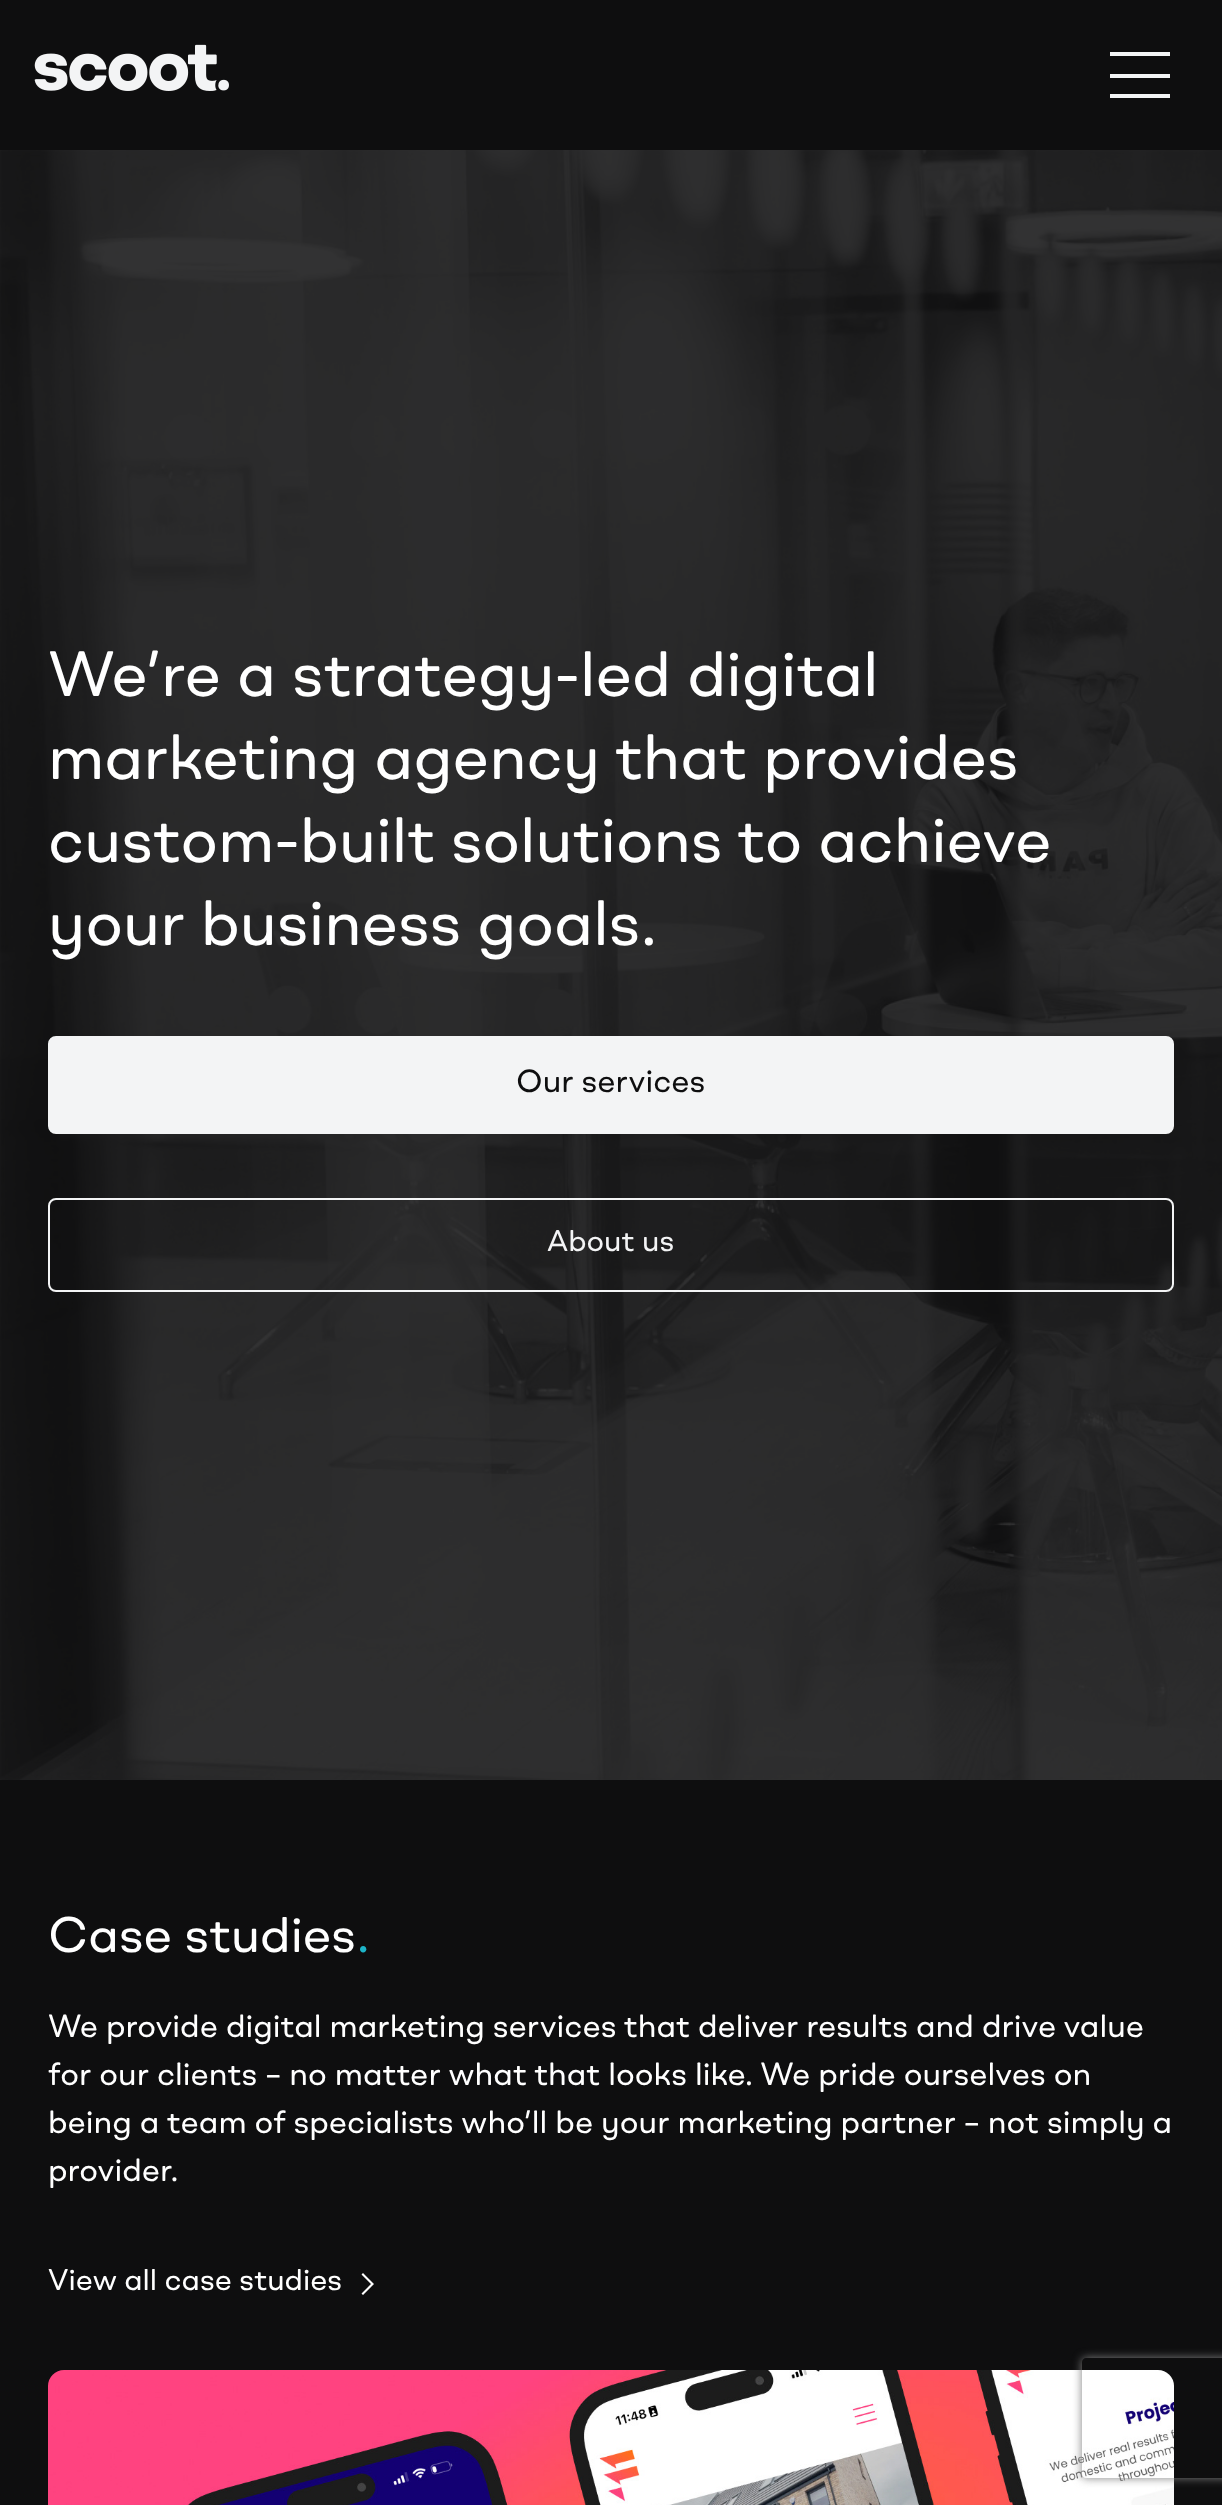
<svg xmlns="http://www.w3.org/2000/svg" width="1222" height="2505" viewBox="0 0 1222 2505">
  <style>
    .t1 { font: 64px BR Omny; fill: #fff; }
    .t2 { font: 32px BR Omny; fill: #0e0e0f; }
    .t3 { font: 30px BR Omny; fill: #f3f4f5; }
    .t4 { font: 50px BR Omny; fill: #fff; }
    .t5 { font: 50px BR Omny; fill: #1db4c8; }
    .t6 { font: 32px BR Omny; fill: #fff; }
    .t7 { font: 30px BR Omny; fill: #fff; }
  </style>
  <defs>
    <clipPath id="clip1"><path d="M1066 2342H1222V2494H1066ZM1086 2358H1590C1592 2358 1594 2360 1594 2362V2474C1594 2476 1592 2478 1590 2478H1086C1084 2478 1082 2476 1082 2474V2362C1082 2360 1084 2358 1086 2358Z" clip-rule="evenodd"/></clipPath>
  </defs>
  <rect width="100%" height="100%" fill="#0e0e0f"/>
  <image x="34" y="44" width="195" height="47" href="images/1.png"/>
  <rect x="1110" y="52" width="60" height="4" fill="#f3f4f5"/>
  <rect x="1110" y="74" width="60" height="4" fill="#f3f4f5"/>
  <rect x="1110" y="94" width="60" height="4" fill="#f3f4f5"/>
  <image x="0" y="150" width="1222" height="1630" href="images/2.png"/>
  <text x="48" y="696" class="t1">We’re a strategy-led digital</text>
  <text x="48" y="779" class="t1">marketing agency that provides</text>
  <text x="48" y="862" class="t1">custom-built solutions to achieve</text>
  <text x="48" y="945" class="t1">your business goals.</text>
  <rect x="49" y="1037" width="1124" height="96" rx="7" fill="#f3f4f5" stroke="#f3f4f5" stroke-width="2"/>
  <text x="516" y="1092" class="t2">Our services</text>
  <rect x="49" y="1199" width="1124" height="92" rx="7" fill="none" stroke="#f3f4f5" stroke-width="2"/>
  <text x="547" y="1251" class="t3">About us</text>
  <text x="48" y="1952" class="t4">Case studies</text>
  <text x="357" y="1952" class="t5">.</text>
  <text x="48" y="2037" class="t6">We provide digital marketing services that deliver results and drive value</text>
  <text x="48" y="2085" class="t6">for our clients – no matter what that looks like. We pride ourselves on</text>
  <text x="48" y="2133" class="t6">being a team of specialists who’ll be your marketing partner – not simply a</text>
  <text x="48" y="2181" class="t6">provider.</text>
  <text x="48" y="2290" class="t7">View all case studies</text>
  <path d="M374 2284L363 2295L361.5 2293.5L371 2284L361.5 2274.5L363 2273Z" fill="#fff"/>
  <image x="48" y="2370" width="1126" height="135" href="images/3.png"/>
  <g clip-path="url(#clip1)">
    <rect x="1082" y="2358" width="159" height="120" rx="4" fill="#808080" filter="blur(5px)"/>
  </g>
</svg>
